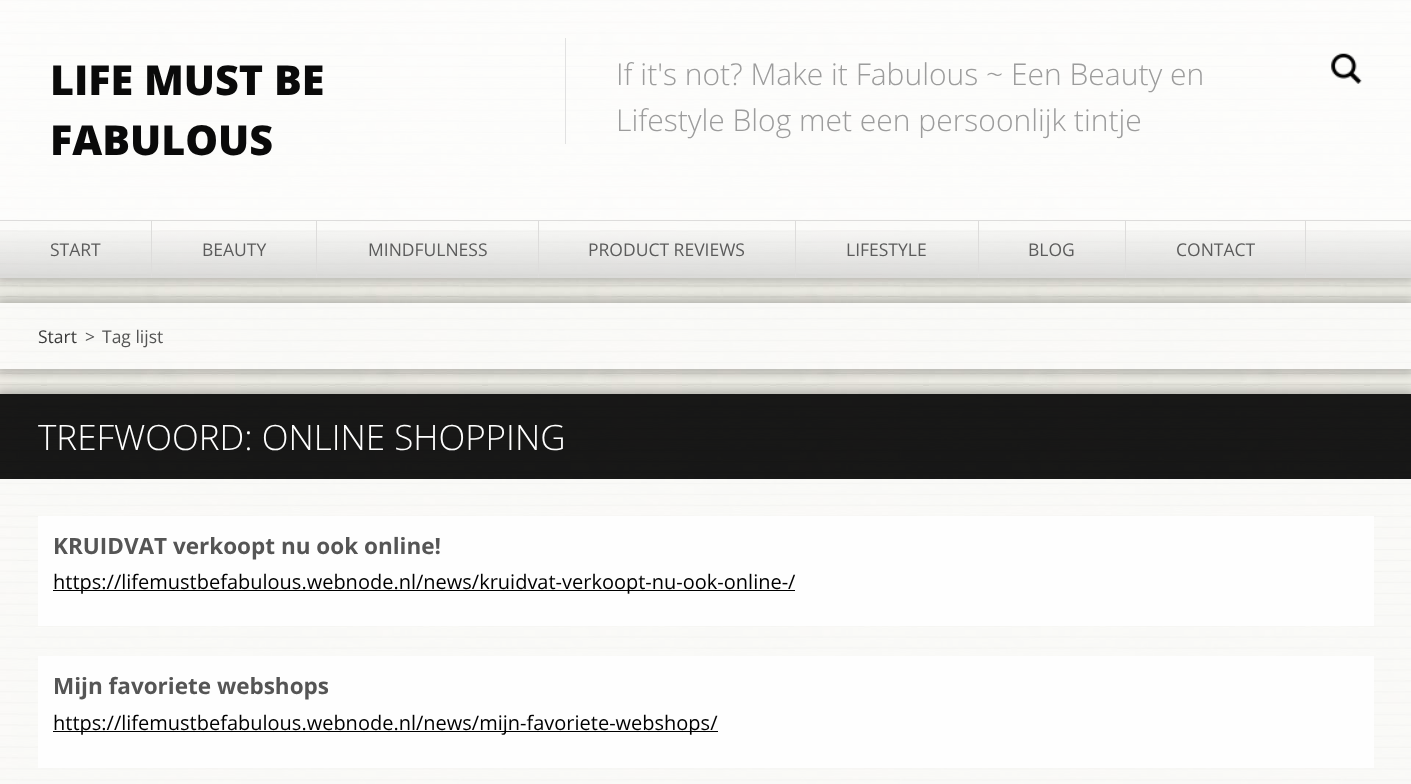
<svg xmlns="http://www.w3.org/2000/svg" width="1411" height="784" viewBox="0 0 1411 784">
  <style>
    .t1 { font: 800 41.25px Open Sans; fill: #0a0a0a; }
    .t2 { font: 300 30px Open Sans; fill: #9c9c9c; }
    .t3 { font: 17.5px Open Sans; fill: #5b5b5b; }
    .t4 { font: 17.5px Open Sans; fill: #3a3a3a; }
    .t5 { font: 17.5px Open Sans; fill: #555; }
    .t6 { font: 300 35px Open Sans; fill: #fff; }
    .t7 { font: bold 22.5px Open Sans; fill: #555; }
    .t8 { font: 20px Open Sans; fill: #000; }
  </style>
  <defs>
    <clipPath id="clip1"><path d="M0 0H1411V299H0ZM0 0H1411V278H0Z" clip-rule="evenodd"/></clipPath>
    <linearGradient id="g1" gradientUnits="userSpaceOnUse" x1="706" y1="221" x2="706" y2="278"><stop offset="0" stop-color="#000" stop-opacity="0"/><stop offset="1" stop-color="#000" stop-opacity="0.13"/></linearGradient>
    <clipPath id="clip2"><path d="M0 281H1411V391H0ZM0 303H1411V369H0Z" clip-rule="evenodd"/></clipPath>
    <clipPath id="clip3"><rect x="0" y="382" width="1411" height="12"/></clipPath>
  </defs>
  <rect width="100%" height="100%" fill="#fff"/>
  <image x="0" y="0" width="1411" height="784" href="images/1.png"/>
  <g clip-path="url(#clip1)">
    <rect x="-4" y="-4" width="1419" height="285" fill="#00000040" filter="blur(5.5px)"/>
  </g>
  <rect x="0" y="0" width="1411" height="220" fill="#ffffffd9"/>
  <text x="50" y="95" class="t1">LIFE MUST BE</text>
  <text x="50" y="155" class="t1">FABULOUS</text>
  <rect x="565" y="38" width="1" height="106" fill="#e1e1e1"/>
  <text x="616" y="85" class="t2">If it's not? Make it Fabulous ~ Een Beauty en</text>
  <text x="616" y="131" class="t2">Lifestyle Blog met een persoonlijk tintje</text>
  <image x="1331" y="53" width="31" height="31" href="images/2.png"/>
  <rect x="0" y="220" width="1411" height="1" fill="#dddcdb"/>
  <rect x="0" y="221" width="1411" height="57" fill="#ffffffbf"/>
  <rect x="0" y="230" width="1411" height="48" fill="url(#g1)"/>
  <rect x="151" y="221" width="1" height="57" fill="#dddcdb"/>
  <text x="50" y="256" class="t3">START</text>
  <rect x="316" y="221" width="1" height="57" fill="#dddcdb"/>
  <text x="202" y="256" class="t3">BEAUTY</text>
  <rect x="538" y="221" width="1" height="57" fill="#dddcdb"/>
  <text x="368" y="256" class="t3">MINDFULNESS</text>
  <rect x="795" y="221" width="1" height="57" fill="#dddcdb"/>
  <text x="588" y="256" class="t3">PRODUCT REVIEWS</text>
  <rect x="978" y="221" width="1" height="57" fill="#dddcdb"/>
  <text x="846" y="256" class="t3">LIFESTYLE</text>
  <rect x="1125" y="221" width="1" height="57" fill="#dddcdb"/>
  <text x="1028" y="256" class="t3">BLOG</text>
  <rect x="1305" y="221" width="1" height="57" fill="#dddcdb"/>
  <text x="1176" y="256" class="t3">CONTACT</text>
  <g clip-path="url(#clip2)">
    <rect x="-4" y="299" width="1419" height="74" fill="#00000040" filter="blur(5.5px)"/>
  </g>
  <rect x="0" y="303" width="1411" height="66" fill="#ffffffb3"/>
  <text x="38" y="343" class="t4">Start</text>
  <text x="85" y="343" class="t5">&gt;</text>
  <text x="102" y="343" class="t5">Tag lijst</text>
  <g clip-path="url(#clip3)">
    <rect x="-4" y="390" width="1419" height="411" fill="#00000040" filter="blur(5.5px)"/>
  </g>
  <rect x="0" y="394" width="1411" height="85" fill="#000000e6"/>
  <text x="38" y="450" class="t6">TREFWOORD: ONLINE SHOPPING</text>
  <rect x="0" y="479" width="1411" height="305" fill="#ffffffb3"/>
  <rect x="38" y="516" width="1336" height="110" fill="#fefefe"/>
  <text x="53" y="554" class="t7">KRUIDVAT verkoopt nu ook online!</text>
  <rect x="53" y="590" width="742" height="1" fill="#000"/>
  <text x="53" y="589" class="t8">https://lifemustbefabulous.webnode.nl/news/kruidvat-verkoopt-nu-ook-online-/</text>
  <rect x="38" y="656" width="1336" height="112" fill="#fefefe"/>
  <text x="53" y="694" class="t7">Mijn favoriete webshops</text>
  <rect x="53" y="731" width="665" height="1" fill="#000"/>
  <text x="53" y="730" class="t8">https://lifemustbefabulous.webnode.nl/news/mijn-favoriete-webshops/</text>
</svg>
